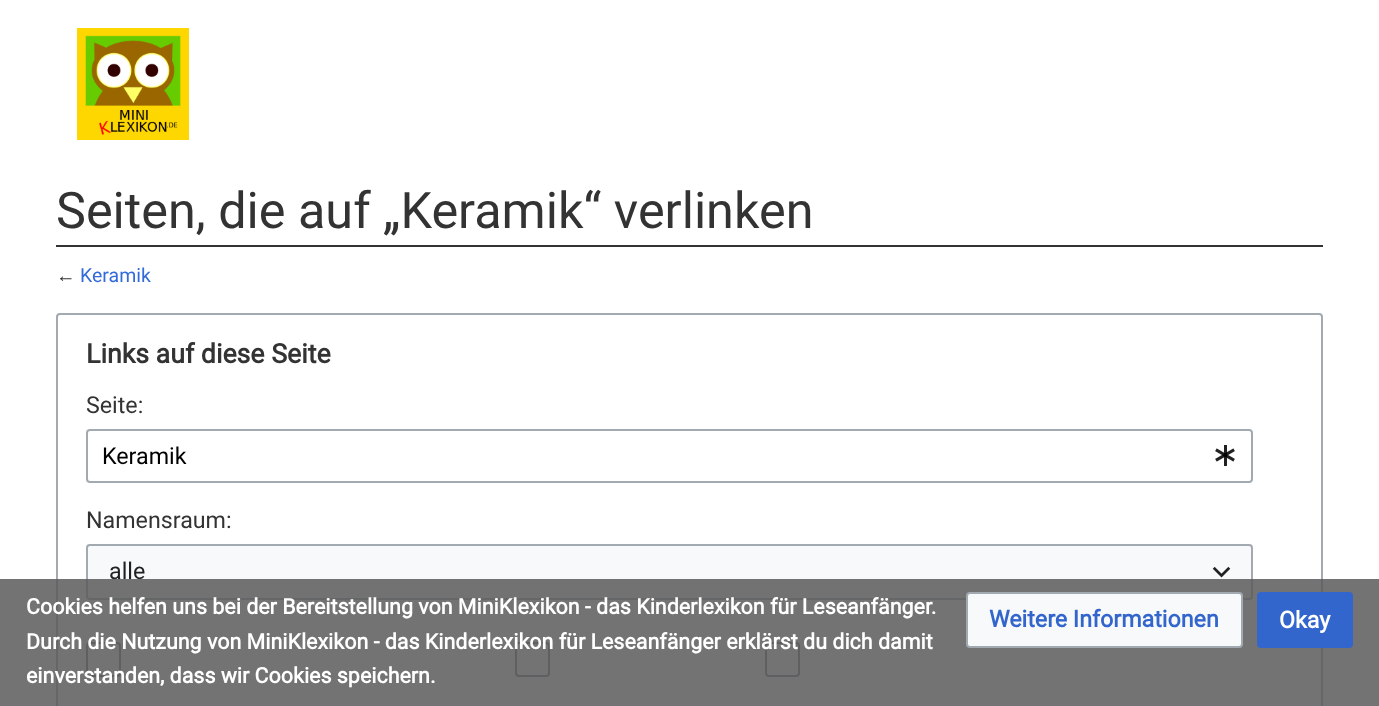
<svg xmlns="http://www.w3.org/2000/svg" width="1379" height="706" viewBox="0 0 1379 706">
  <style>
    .t1 { font: 50.4px Roboto; fill: #333; }
    .t2 { font: 19.5px Liberation Sans; fill: #333; }
    .t3 { font: 19.5px Roboto; fill: #336bda; }
    .t4 { font: bold 26.75px Roboto; fill: #333; }
    .t5 { font: 23.25px Roboto; fill: #333; }
    .t6 { font: 23.25px Roboto; fill: #000; }
    .t7 { font: 23.25px Roboto; fill: #202122; }
    .t8 { font: bold 21.45px Roboto; fill: #fff; }
    .t9 { font: bold 23.25px Roboto; fill: #36c; }
    .t10 { font: bold 23.25px Roboto; fill: #fff; }
  </style>
  <rect width="100%" height="100%" fill="#fff"/>
  <image x="77" y="28" width="112" height="112" href="images/1.png"/>
  <rect x="56" y="245" width="1267" height="2" fill="#333"/>
  <text x="56" y="228" class="t1">Seiten, die auf „Keramik“ verlinken</text>
  <text x="56" y="282" class="t2">←</text>
  <text x="80" y="282" class="t3">Keramik</text>
  <rect x="57" y="314" width="1265" height="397" rx="3" fill="none" stroke="#a2a9b1" stroke-width="2"/>
  <text x="86" y="363" class="t4">Links auf diese Seite</text>
  <text x="86" y="413" class="t5">Seite:</text>
  <rect x="87" y="430" width="1165" height="52" rx="3" fill="none" stroke="#a2a9b1" stroke-width="2"/>
  <text x="102" y="464" class="t6">Keramik</text>
  <image x="1215" y="445" width="20" height="21" href="images/2.png"/>
  <text x="86" y="528" class="t5">Namensraum:</text>
  <rect x="86" y="544" width="1167" height="56" fill="#f8f9fa"/>
  <rect x="87" y="545" width="1165" height="54" rx="3" fill="none" stroke="#a2a9b1" stroke-width="2"/>
  <text x="109" y="579" class="t7">alle</text>
  <image x="1212" y="566" width="19" height="12" href="images/3.png"/>
  <rect x="87" y="643" width="33" height="33" rx="3" fill="none" stroke="#72777d" stroke-width="2"/>
  <rect x="516" y="643" width="33" height="33" rx="3" fill="none" stroke="#72777d" stroke-width="2"/>
  <rect x="766" y="643" width="33" height="33" rx="3" fill="none" stroke="#72777d" stroke-width="2"/>
  <rect x="0" y="579" width="1379" height="127" fill="#5a5a5ad9"/>
  <text x="26" y="614" class="t8">Cookies helfen uns bei der Bereitstellung von MiniKlexikon - das Kinderlexikon für Leseanfänger.</text>
  <text x="26" y="649" class="t8">Durch die Nutzung von MiniKlexikon - das Kinderlexikon für Leseanfänger erklärst du dich damit</text>
  <text x="26" y="683" class="t8">einverstanden, dass wir Cookies speichern.</text>
  <rect x="967" y="593" width="275" height="54" rx="3" fill="#f8f9fa" stroke="#a2a9b1" stroke-width="2"/>
  <text x="989" y="627" class="t9">Weitere Informationen</text>
  <rect x="1258" y="593" width="94" height="54" rx="3" fill="#36c" stroke="#36c" stroke-width="2"/>
  <text x="1279" y="628" class="t10">Okay</text>
</svg>
